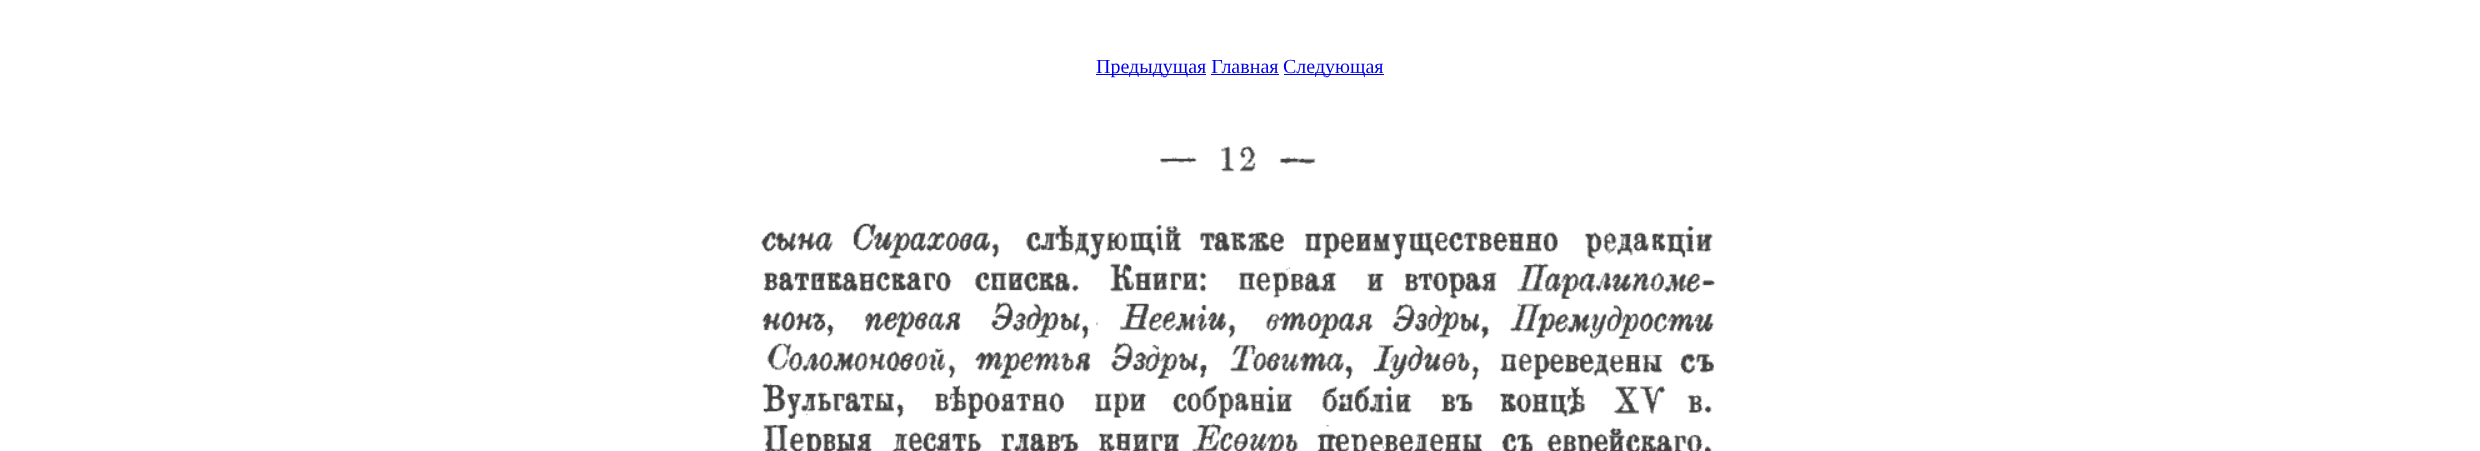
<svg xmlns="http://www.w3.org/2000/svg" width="2480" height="451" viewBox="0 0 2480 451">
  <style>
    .t1 { font: 20px Liberation Serif; fill: #00e; }
  </style>
  <rect width="100%" height="100%" fill="#fff"/>
  <rect x="1096" y="74" width="110" height="1" fill="#00e"/>
  <text x="1096" y="73" class="t1">Предыдущая Главная</text>
  <rect x="1284" y="74" width="100" height="1" fill="#00e"/>
  <text x="1283" y="73" class="t1">Следующая</text>
  <rect x="1211" y="74" width="68" height="1" fill="#00e"/>
  <image x="761" y="146" width="955" height="305" href="images/1.png"/>
</svg>
